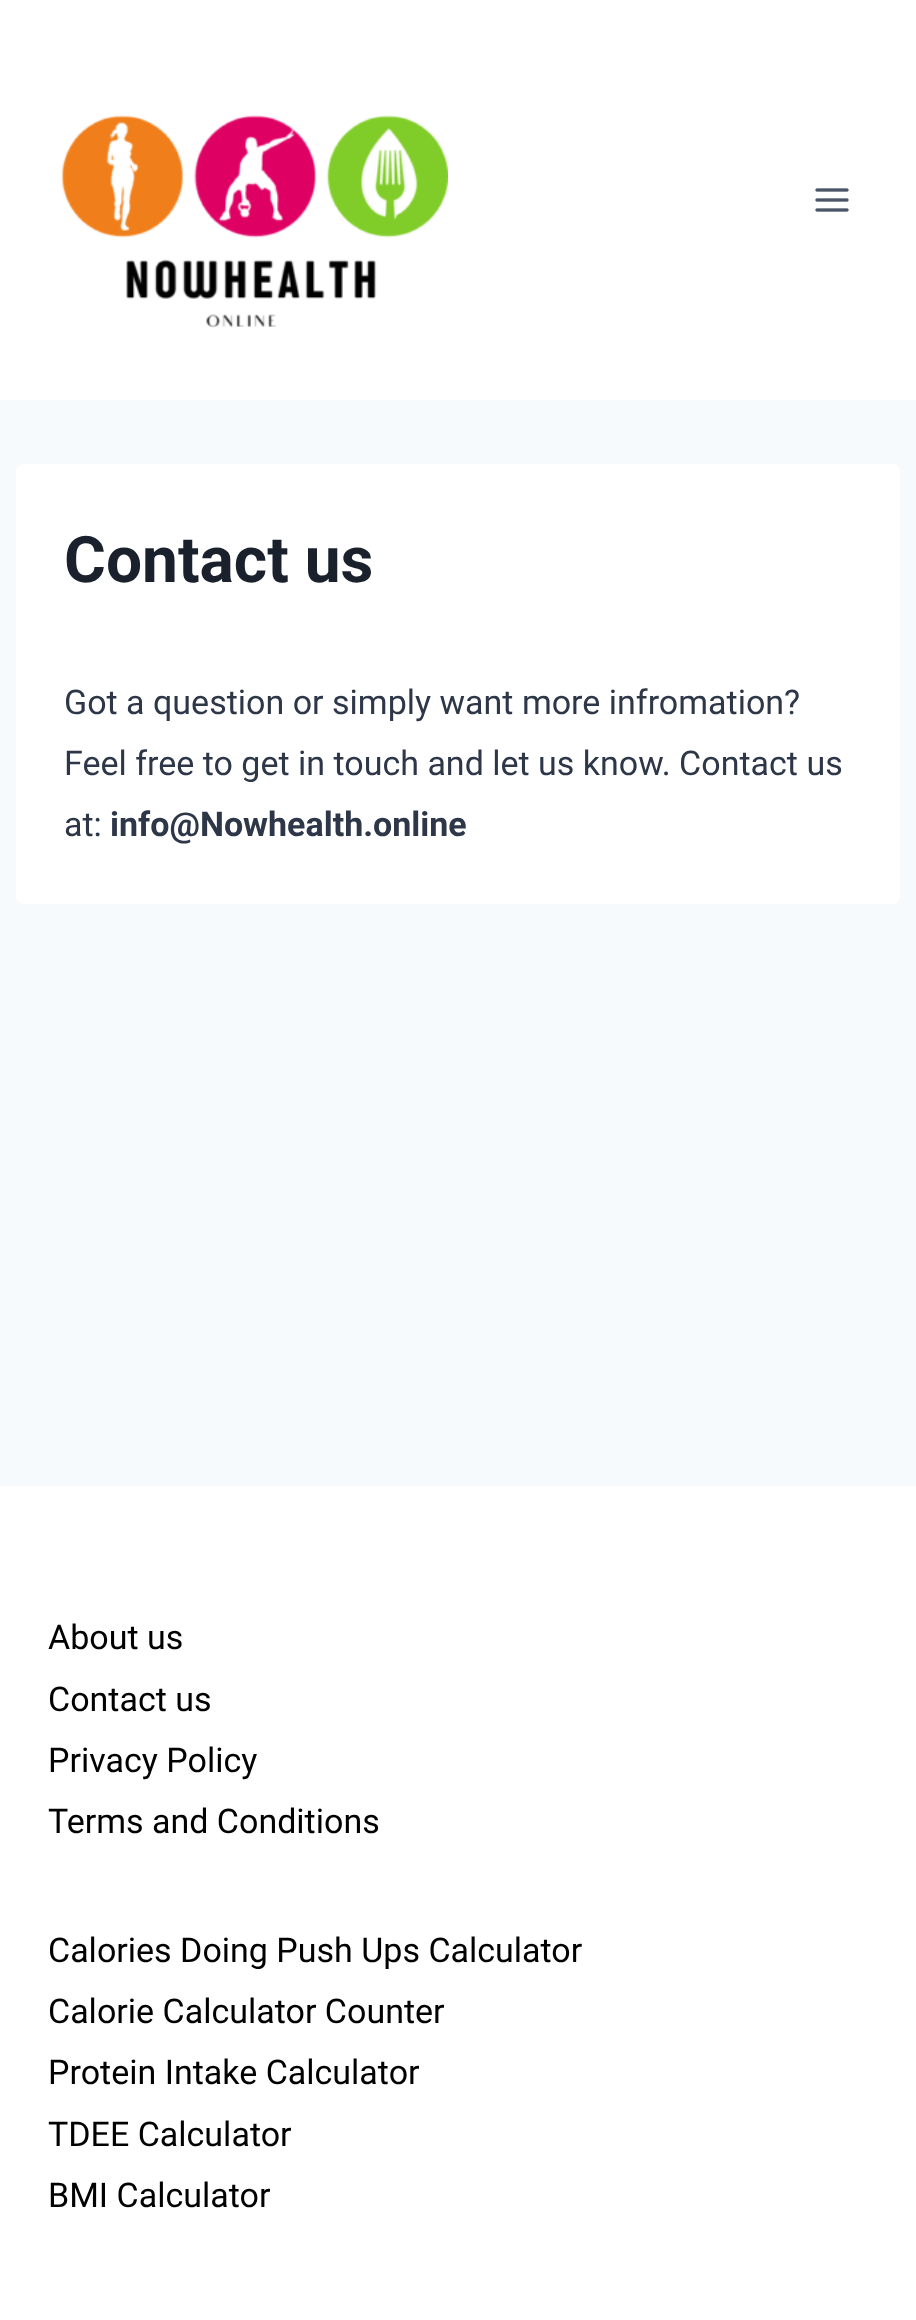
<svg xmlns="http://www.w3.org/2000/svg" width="916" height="2320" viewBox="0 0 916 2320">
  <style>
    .t1 { font: bold 64px Roboto; fill: #1a202c; }
    .t2 { font: 34px Roboto; fill: #2d3748; }
    .t3 { font: bold 34px Roboto; fill: #2d3748; }
    .t4 { font: 34px Roboto; fill: #000; }
  </style>
  <rect width="100%" height="100%" fill="#f7fafc"/>
  <rect x="0" y="0" width="916" height="400" fill="#fff"/>
  <image x="61" y="115" width="387" height="213" href="images/1.png"/>
  <image x="815" y="188" width="34" height="24" href="images/2.png"/>
  <rect x="16" y="464" width="884" height="440" rx="8" fill="#fff"/>
  <text x="64" y="582" class="t1">Contact us</text>
  <text x="64" y="714" class="t2">Got a question or simply want more infromation?</text>
  <text x="64" y="775" class="t2">Feel free to get in touch and let us know. Contact us</text>
  <text x="64" y="836" class="t2">at:</text>
  <text x="110" y="836" class="t3">info@Nowhealth.online</text>
  <rect x="0" y="1486" width="916" height="834" fill="#fff"/>
  <text x="48" y="1649" class="t4">About us</text>
  <text x="48" y="1711" class="t4">Contact us</text>
  <text x="48" y="1772" class="t4">Privacy Policy</text>
  <text x="48" y="1833" class="t4">Terms and Conditions</text>
  <text x="48" y="1962" class="t4">Calories Doing Push Ups Calculator</text>
  <text x="48" y="2023" class="t4">Calorie Calculator Counter</text>
  <text x="48" y="2084" class="t4">Protein Intake Calculator</text>
  <text x="48" y="2146" class="t4">TDEE Calculator</text>
  <text x="48" y="2207" class="t4">BMI Calculator</text>
</svg>
